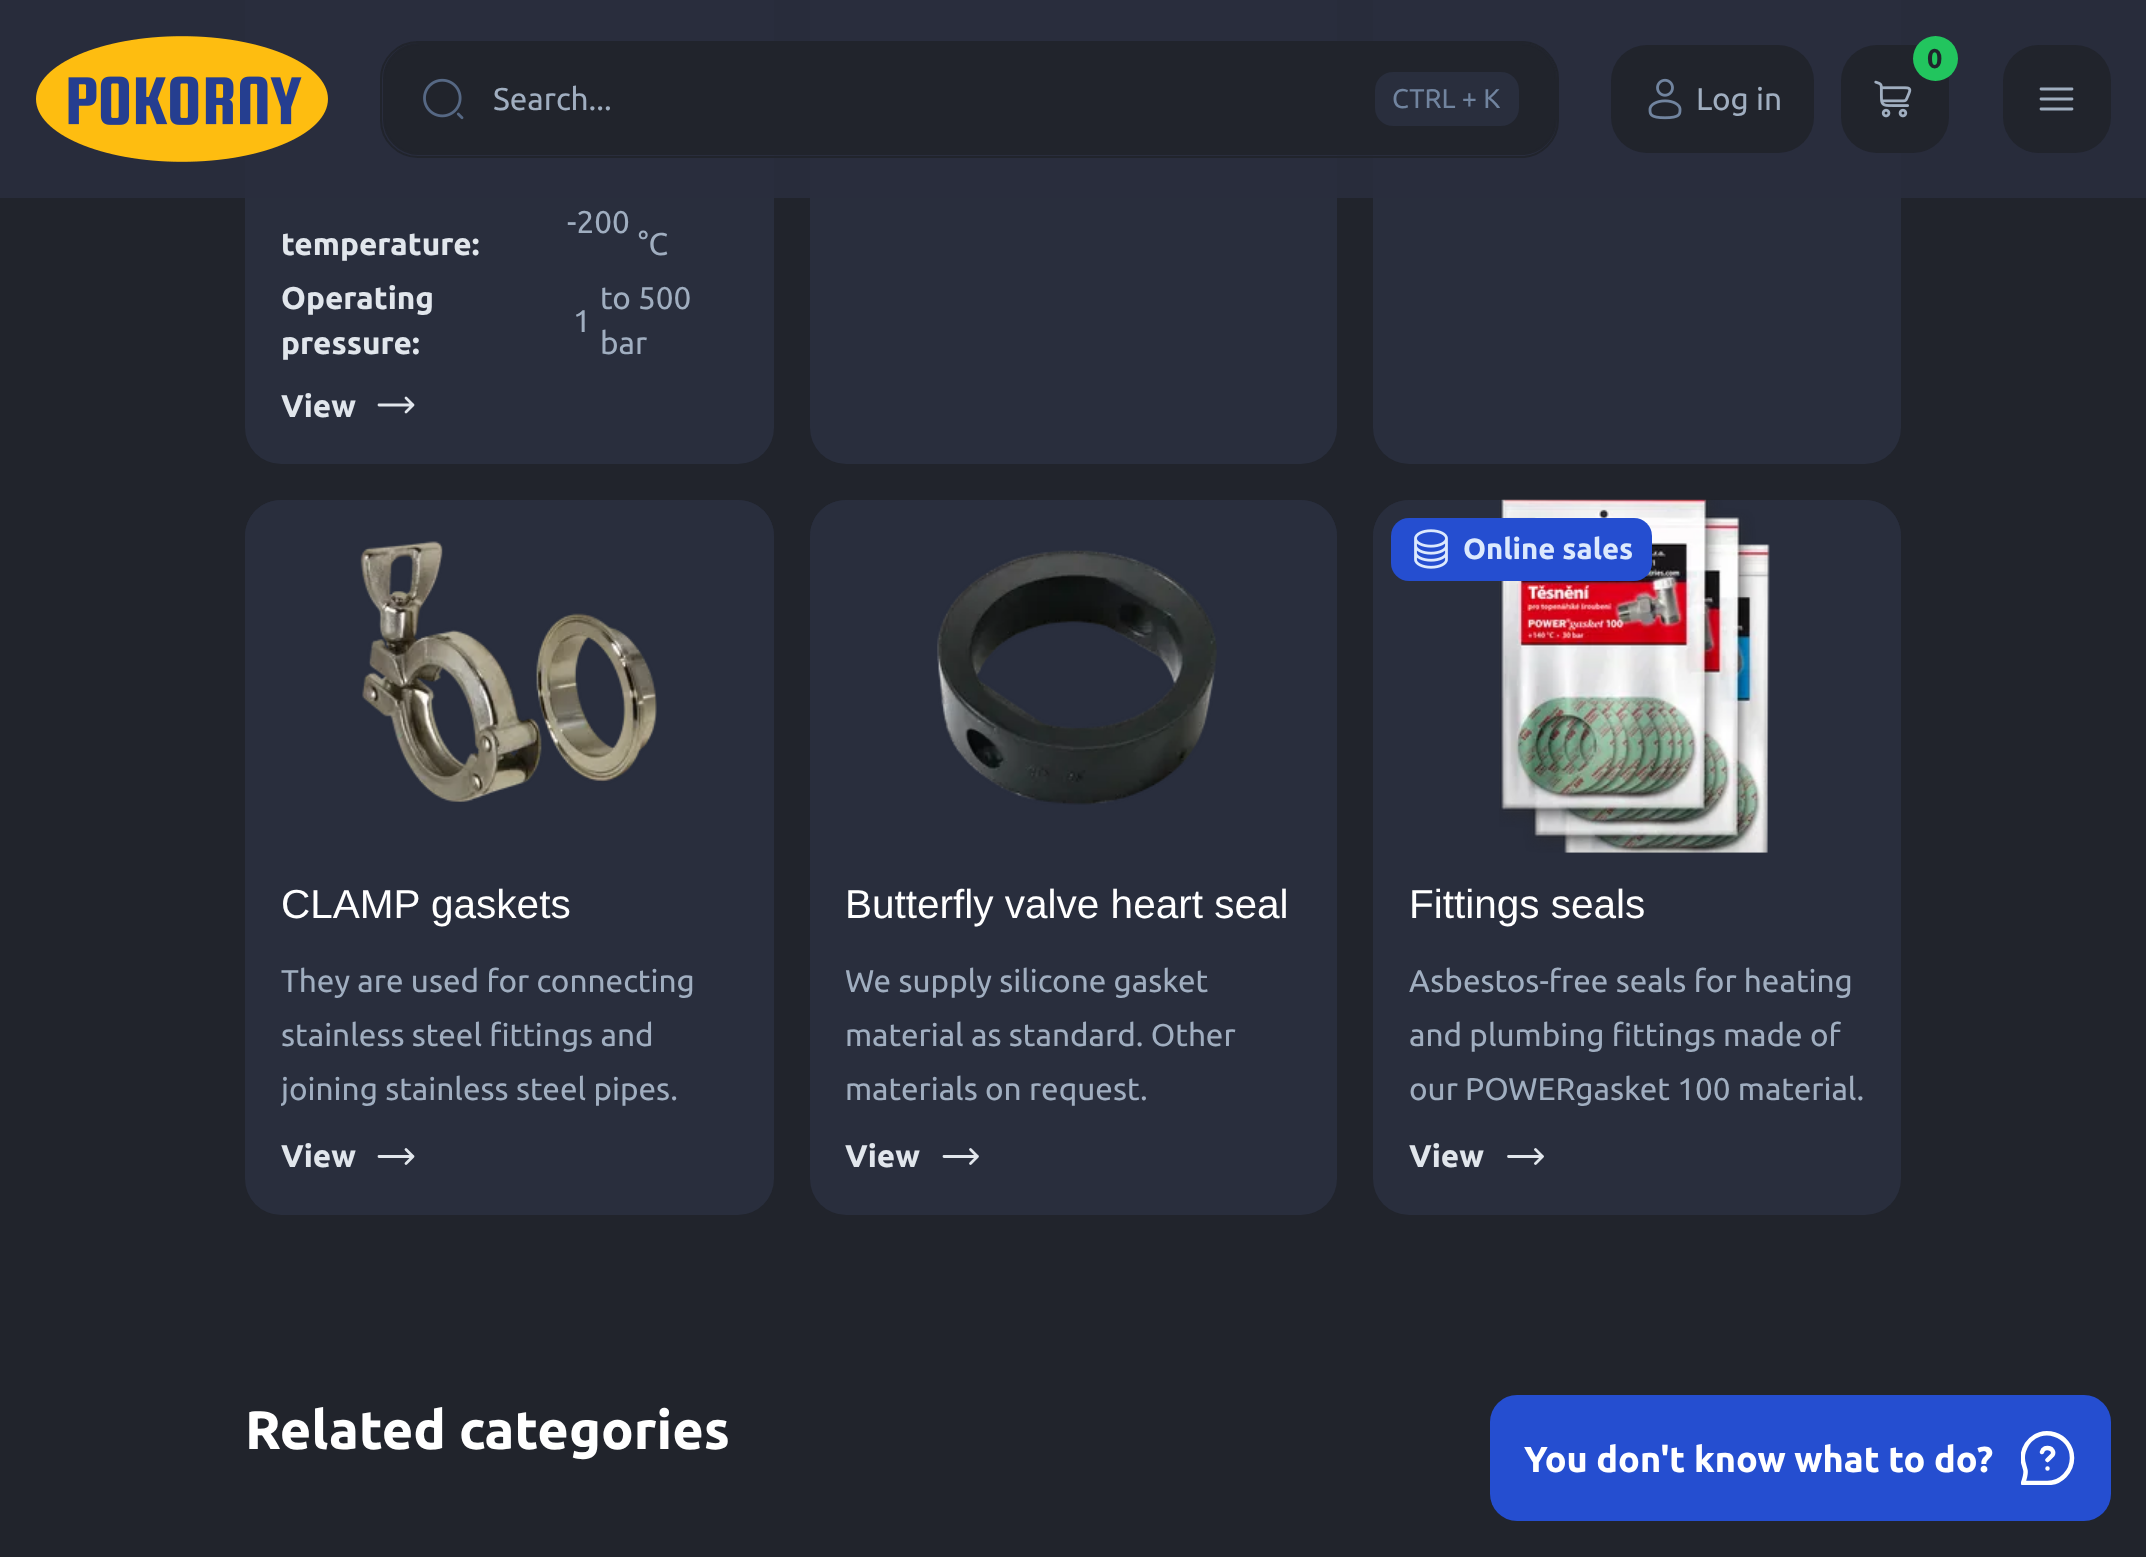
<svg xmlns="http://www.w3.org/2000/svg" width="2146" height="1557" viewBox="0 0 2146 1557">
  <style>
    .t1 { font: 31.5px Ubuntu; fill: #a0aec0; }
    .t2 { font: 27px Ubuntu; fill: #71849f; }
    .t3 { font: bold 27px Ubuntu; fill: #21242c; }
    .t4 { font: bold 31.5px Ubuntu; fill: #e1e6ec; }
    .t5 { font: 40.5px Liberation Sans; fill: #fff; }
    .t6 { font: bold 29.25px Ubuntu; fill: #dce9fd; }
    .t7 { font: bold 54px Ubuntu; fill: #fff; }
    .t8 { font: bold 36px Ubuntu; fill: #fff; }
  </style>
  <defs>
    <clipPath id="clip1"><rect x="281" y="954" width="457" height="162"/></clipPath>
    <clipPath id="clip2"><rect x="2021" y="1431" width="54" height="54"/></clipPath>
  </defs>
  <rect width="100%" height="100%" fill="#21242c"/>
  <rect x="245" y="-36" width="529" height="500" rx="36" fill="#292e3d"/>
  <rect x="810" y="-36" width="527" height="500" rx="36" fill="#292e3d"/>
  <rect x="1373" y="-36" width="528" height="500" rx="36" fill="#292e3d"/>
  <rect x="0" y="0" width="2146" height="198" fill="#292e3de6"/>
  <image x="36" y="36" width="292" height="126" href="images/1.png"/>
  <rect x="381" y="42" width="1177" height="115" rx="37" fill="none" stroke="#21242c" stroke-width="2"/>
  <rect x="384" y="44" width="1172" height="110" rx="35" fill="#21242c" stroke="#21242c" stroke-width="2"/>
  <image x="423" y="78" width="41" height="42" href="images/2.png"/>
  <text x="493" y="110" class="t1">Search...</text>
  <rect x="1375" y="72" width="144" height="54" rx="18" fill="#292e3d"/>
  <text x="1392" y="108" class="t2">CTRL + K</text>
  <rect x="1841" y="45" width="108" height="108" rx="36" fill="#21242c"/>
  <circle cx="1935.5" cy="58.5" r="22.5" fill="#22c55e"/>
  <text x="1927" y="68" class="t3">0</text>
  <image x="1874" y="80" width="38" height="38" href="images/3.png"/>
  <rect x="1611" y="45" width="203" height="108" rx="36" fill="#21242c"/>
  <image x="1648" y="78" width="34" height="42" href="images/4.png"/>
  <text x="1696" y="110" class="t1">Log in</text>
  <rect x="2003" y="45" width="108" height="108" rx="36" fill="#21242c"/>
  <path d="M2041 89H2072M2041 99H2072M2041 109H2072" fill="none" stroke="#a0aec0" stroke-width="2.8" stroke-linecap="round" stroke-linejoin="round"/>
  <text x="567" y="233" class="t1">-200</text>
  <text x="281" y="255" class="t4">temperature:</text>
  <text x="638" y="255" class="t1">°C</text>
  <text x="281" y="309" class="t4">Operating</text>
  <text x="281" y="354" class="t4">pressure:</text>
  <text x="600" y="309" class="t1">to 500</text>
  <text x="573" y="332" class="t1">1</text>
  <text x="600" y="354" class="t1">bar</text>
  <text x="281" y="417" class="t4">View</text>
  <path d="M406 398L413 405M413 405L406 412M413 405H379" fill="none" stroke="#e1e6ec" stroke-width="2.8" stroke-linecap="round" stroke-linejoin="round"/>
  <rect x="245" y="500" width="529" height="715" rx="36" fill="#292e3d"/>
  <path d="M281 500H738C758 500 774 516 774 536V853H245V536C245 516 261 500 281 500Z" fill="#292e3d"/>
  <image x="360" y="541" width="297" height="261" href="images/5.png"/>
  <text x="281" y="918" class="t5">CLAMP gaskets</text>
  <text x="281" y="992" class="t1">They are used for connecting</text>
  <text x="281" y="1046" class="t1">stainless steel fittings and</text>
  <g clip-path="url(#clip1)">
    <text x="281" y="1100" class="t1">joining stainless steel pipes.</text>
  </g>
  <text x="281" y="1167" class="t4">View</text>
  <path d="M406 1149.5L413 1156.5M413 1156.5L406 1163.5M413 1156.5H379" fill="none" stroke="#e1e6ec" stroke-width="2.8" stroke-linecap="round" stroke-linejoin="round"/>
  <rect x="810" y="500" width="527" height="715" rx="36" fill="#292e3d"/>
  <path d="M846 500H1301C1321 500 1337 516 1337 536V853H810V536C810 516 826 500 846 500Z" fill="#292e3d"/>
  <image x="937" y="550" width="280" height="255" href="images/6.png"/>
  <text x="845" y="918" class="t5">Butterfly valve heart seal</text>
  <text x="845" y="992" class="t1">We supply silicone gasket</text>
  <text x="845" y="1046" class="t1">material as standard. Other</text>
  <text x="845" y="1100" class="t1">materials on request.</text>
  <text x="845" y="1167" class="t4">View</text>
  <path d="M970.5 1149.5L977.5 1156.5M977.5 1156.5L970.5 1163.5M977.5 1156.5H944" fill="none" stroke="#e1e6ec" stroke-width="2.8" stroke-linecap="round" stroke-linejoin="round"/>
  <rect x="1373" y="500" width="528" height="715" rx="36" fill="#292e3d"/>
  <path d="M1409 500H1865C1885 500 1901 516 1901 536V853H1373V536C1373 516 1389 500 1409 500Z" fill="#292e3d"/>
  <image x="1499" y="499" width="271" height="354" href="images/7.png"/>
  <rect x="1391" y="518" width="261" height="63" rx="18" fill="#254ed0"/>
  <image x="1414" y="529" width="34" height="40" href="images/8.png"/>
  <text x="1463" y="559" class="t6">Online sales</text>
  <text x="1409" y="918" class="t5">Fittings seals</text>
  <text x="1409" y="992" class="t1">Asbestos-free seals for heating</text>
  <text x="1409" y="1046" class="t1">and plumbing fittings made of</text>
  <text x="1409" y="1100" class="t1">our POWERgasket 100 material.</text>
  <text x="1409" y="1167" class="t4">View</text>
  <path d="M1535.5 1149.5L1542.5 1156.5M1542.5 1156.5L1535.5 1163.5M1542.5 1156.5H1508.5" fill="none" stroke="#e1e6ec" stroke-width="2.8" stroke-linecap="round" stroke-linejoin="round"/>
  <text x="245" y="1449" class="t7">Related categories</text>
  <rect x="1490" y="1395" width="621" height="126" rx="27" fill="#254ed0"/>
  <text x="1524" y="1472" class="t8">You don't know what to do?</text>
  <g clip-path="url(#clip2)">
    <path d="M2047.5 1460L2052.5 1455C2056 1448.5 2044 1444.5 2042 1452M2047.5 1468.5H2047.5M2072 1458C2072 1471.5 2061 1483 2047.5 1483H2023C2024.5 1479 2026 1474.5 2025.5 1470.5L2024 1465C2021.5 1458 2023 1450.5 2027 1444C2040.5 1424 2072 1434 2072 1458Z" fill="none" stroke="#fff" stroke-width="4.5" stroke-linecap="round" stroke-linejoin="round"/>
  </g>
</svg>
